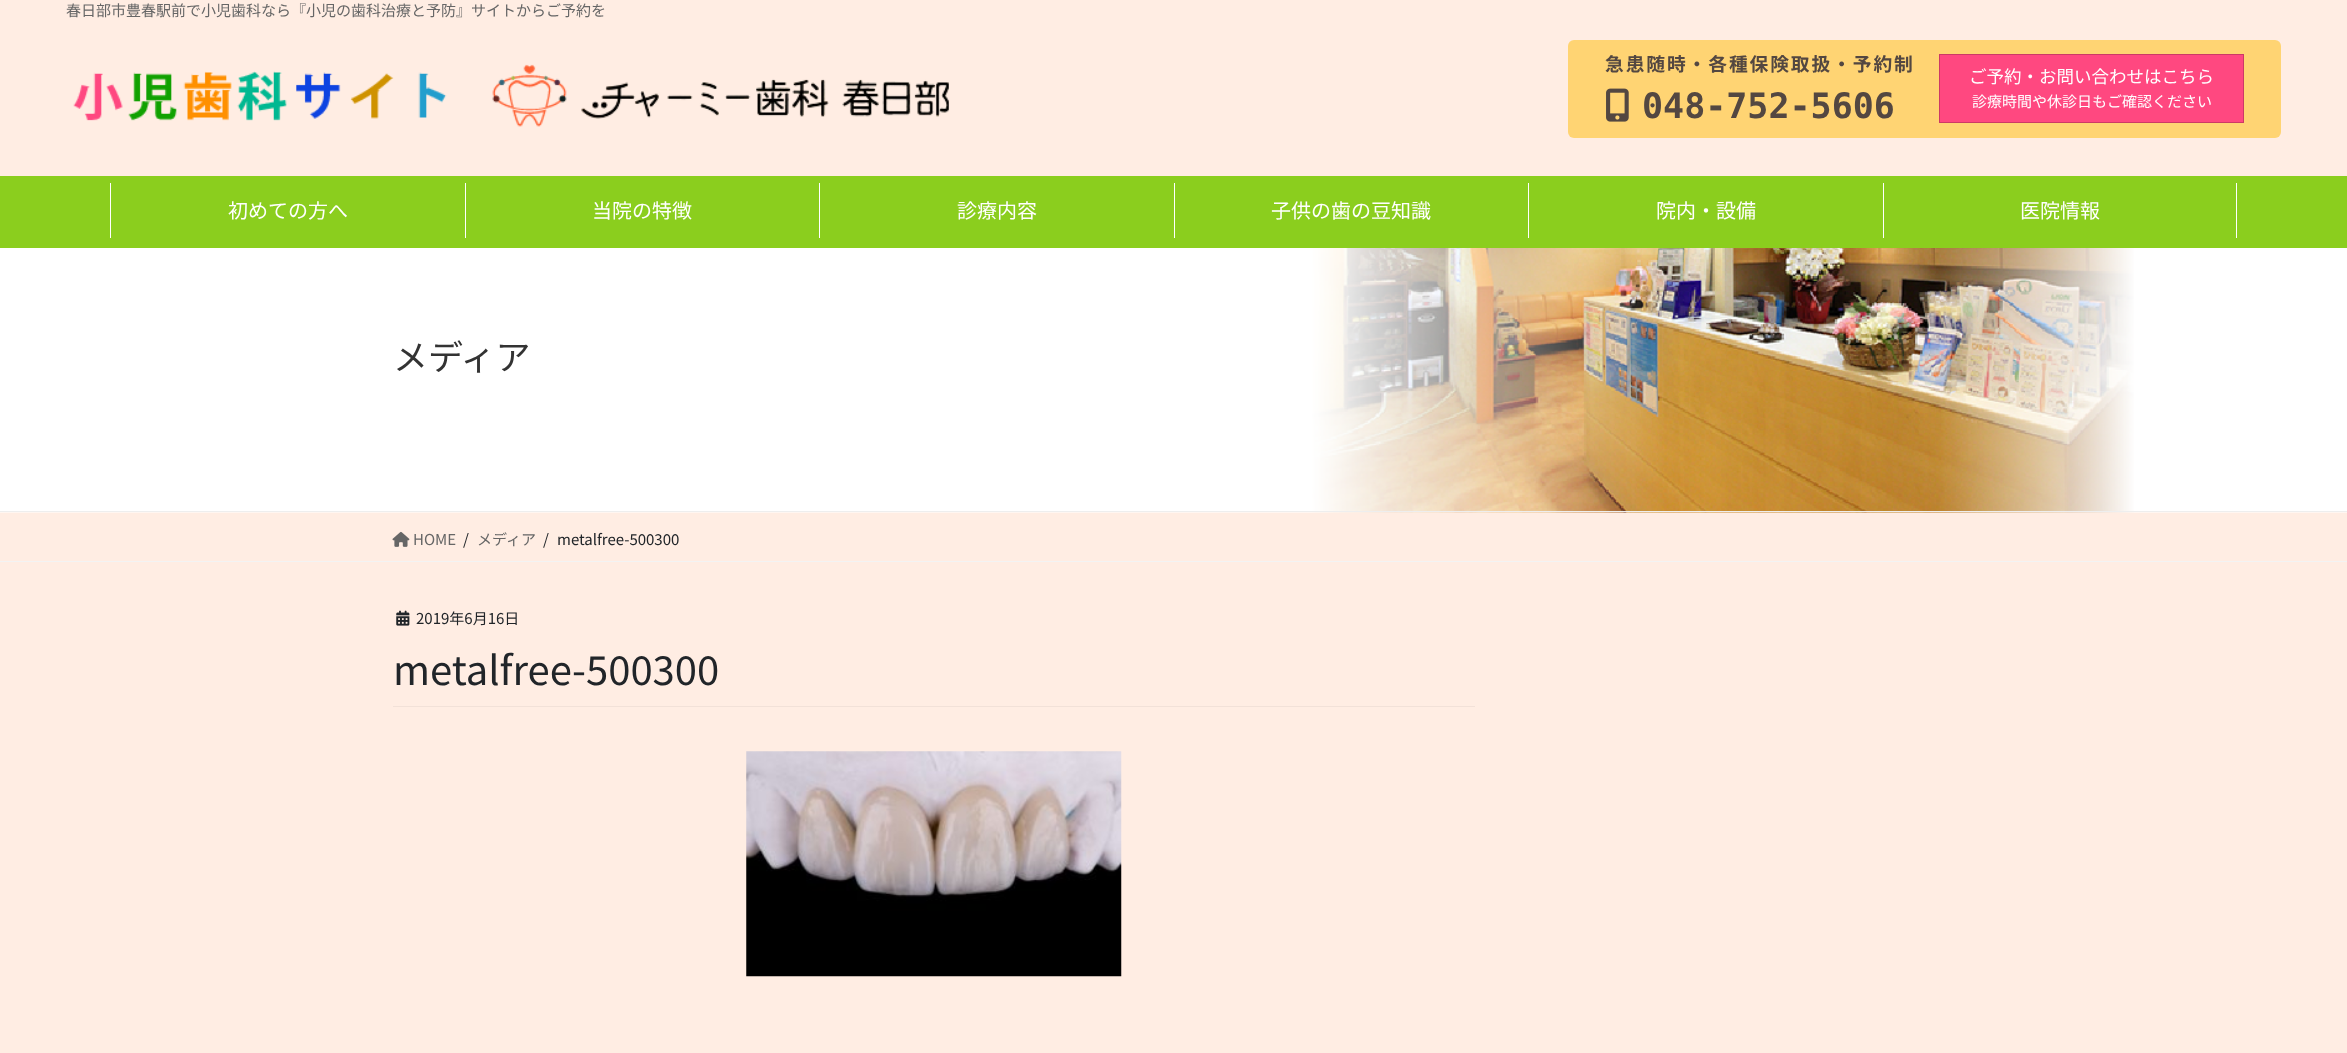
<svg xmlns="http://www.w3.org/2000/svg" width="2347" height="1053" viewBox="0 0 2347 1053">
  <style>
    .t1 { font: 15px Noto Sans JP; fill: #666; }
    .t2 { font: bold 18.75px Noto Sans JP; letter-spacing: 1.9px; fill: #534741; }
    .t3 { font: bold 35px DejaVu Sans Mono; fill: #534741; }
    .t4 { font: 17.5px Noto Sans JP; fill: #fff; }
    .t5 { font: 15px Noto Sans JP; fill: #fff; }
    .t6 { font: 20px Noto Sans JP; fill: #fff; }
    .t7 { font: 35px Noto Sans JP; fill: #333; }
    .t8 { font: 15px Noto Sans JP; fill: #212529; }
    .t9 { font: 40px Noto Sans JP; fill: #212529; }
  </style>
  <rect width="100%" height="100%" fill="#ffede3"/>
  <text x="66" y="16" class="t1">春日部市豊春駅前で小児歯科なら『小児の歯科治療と予防』サイトからご予約を</text>
  <image x="73" y="64" width="876" height="63" href="images/1.png"/>
  <rect x="1568" y="40" width="713" height="98" rx="6" fill="#ffd473"/>
  <text x="1605" y="71" class="t2">急患随時・各種保険取扱・予約制</text>
  <image x="1606" y="88" width="23" height="34" href="images/2.png"/>
  <text x="1642" y="118" class="t3">048-752-5606</text>
  <rect x="1939.5" y="54.5" width="304" height="68" fill="#ff4880" stroke="#cc3a66"/>
  <text x="1969" y="83" class="t4">ご予約・お問い合わせはこちら</text>
  <text x="1972" y="107" class="t5">診療時間や休診日もご確認ください</text>
  <rect x="0" y="176" width="2347" height="72" fill="#8bce1e"/>
  <rect x="110" y="183" width="1" height="55" fill="#fff"/>
  <text x="228" y="218" class="t6">初めての方へ</text>
  <rect x="465" y="183" width="1" height="55" fill="#fff"/>
  <text x="592" y="218" class="t6">当院の特徴</text>
  <rect x="819" y="183" width="1" height="55" fill="#fff"/>
  <text x="957" y="218" class="t6">診療内容</text>
  <rect x="1174" y="183" width="1" height="55" fill="#fff"/>
  <text x="1271" y="218" class="t6">子供の歯の豆知識</text>
  <rect x="1528" y="183" width="1" height="55" fill="#fff"/>
  <text x="1656" y="218" class="t6">院内・設備</text>
  <rect x="2236" y="183" width="1" height="55" fill="#fff"/>
  <rect x="1883" y="183" width="1" height="55" fill="#fff"/>
  <text x="2020" y="218" class="t6">医院情報</text>
  <image x="0" y="248" width="2347" height="265" href="images/3.png"/>
  <rect x="0" y="511" width="2347" height="1" fill="#eee"/>
  <text x="393" y="370" class="t7">メディア</text>
  <rect x="0" y="561" width="2347" height="1" fill="#f3f3f3"/>
  <image x="392" y="531" width="18" height="16" href="images/4.png"/>
  <text x="413" y="545" class="t1">HOME</text>
  <text x="463" y="545" class="t8">/</text>
  <text x="477" y="545" class="t1">メディア</text>
  <text x="543" y="545" class="t8">/</text>
  <text x="557" y="545" class="t8">metalfree-500300</text>
  <rect x="393" y="706" width="1082" height="1" fill="#f2e1d8"/>
  <image x="396" y="610" width="14" height="16" href="images/5.png"/>
  <text x="416" y="624" class="t8">2019年6月16日</text>
  <text x="393" y="685" class="t9">metalfree-500300</text>
  <image x="746" y="751" width="376" height="226" href="images/6.png"/>
</svg>
